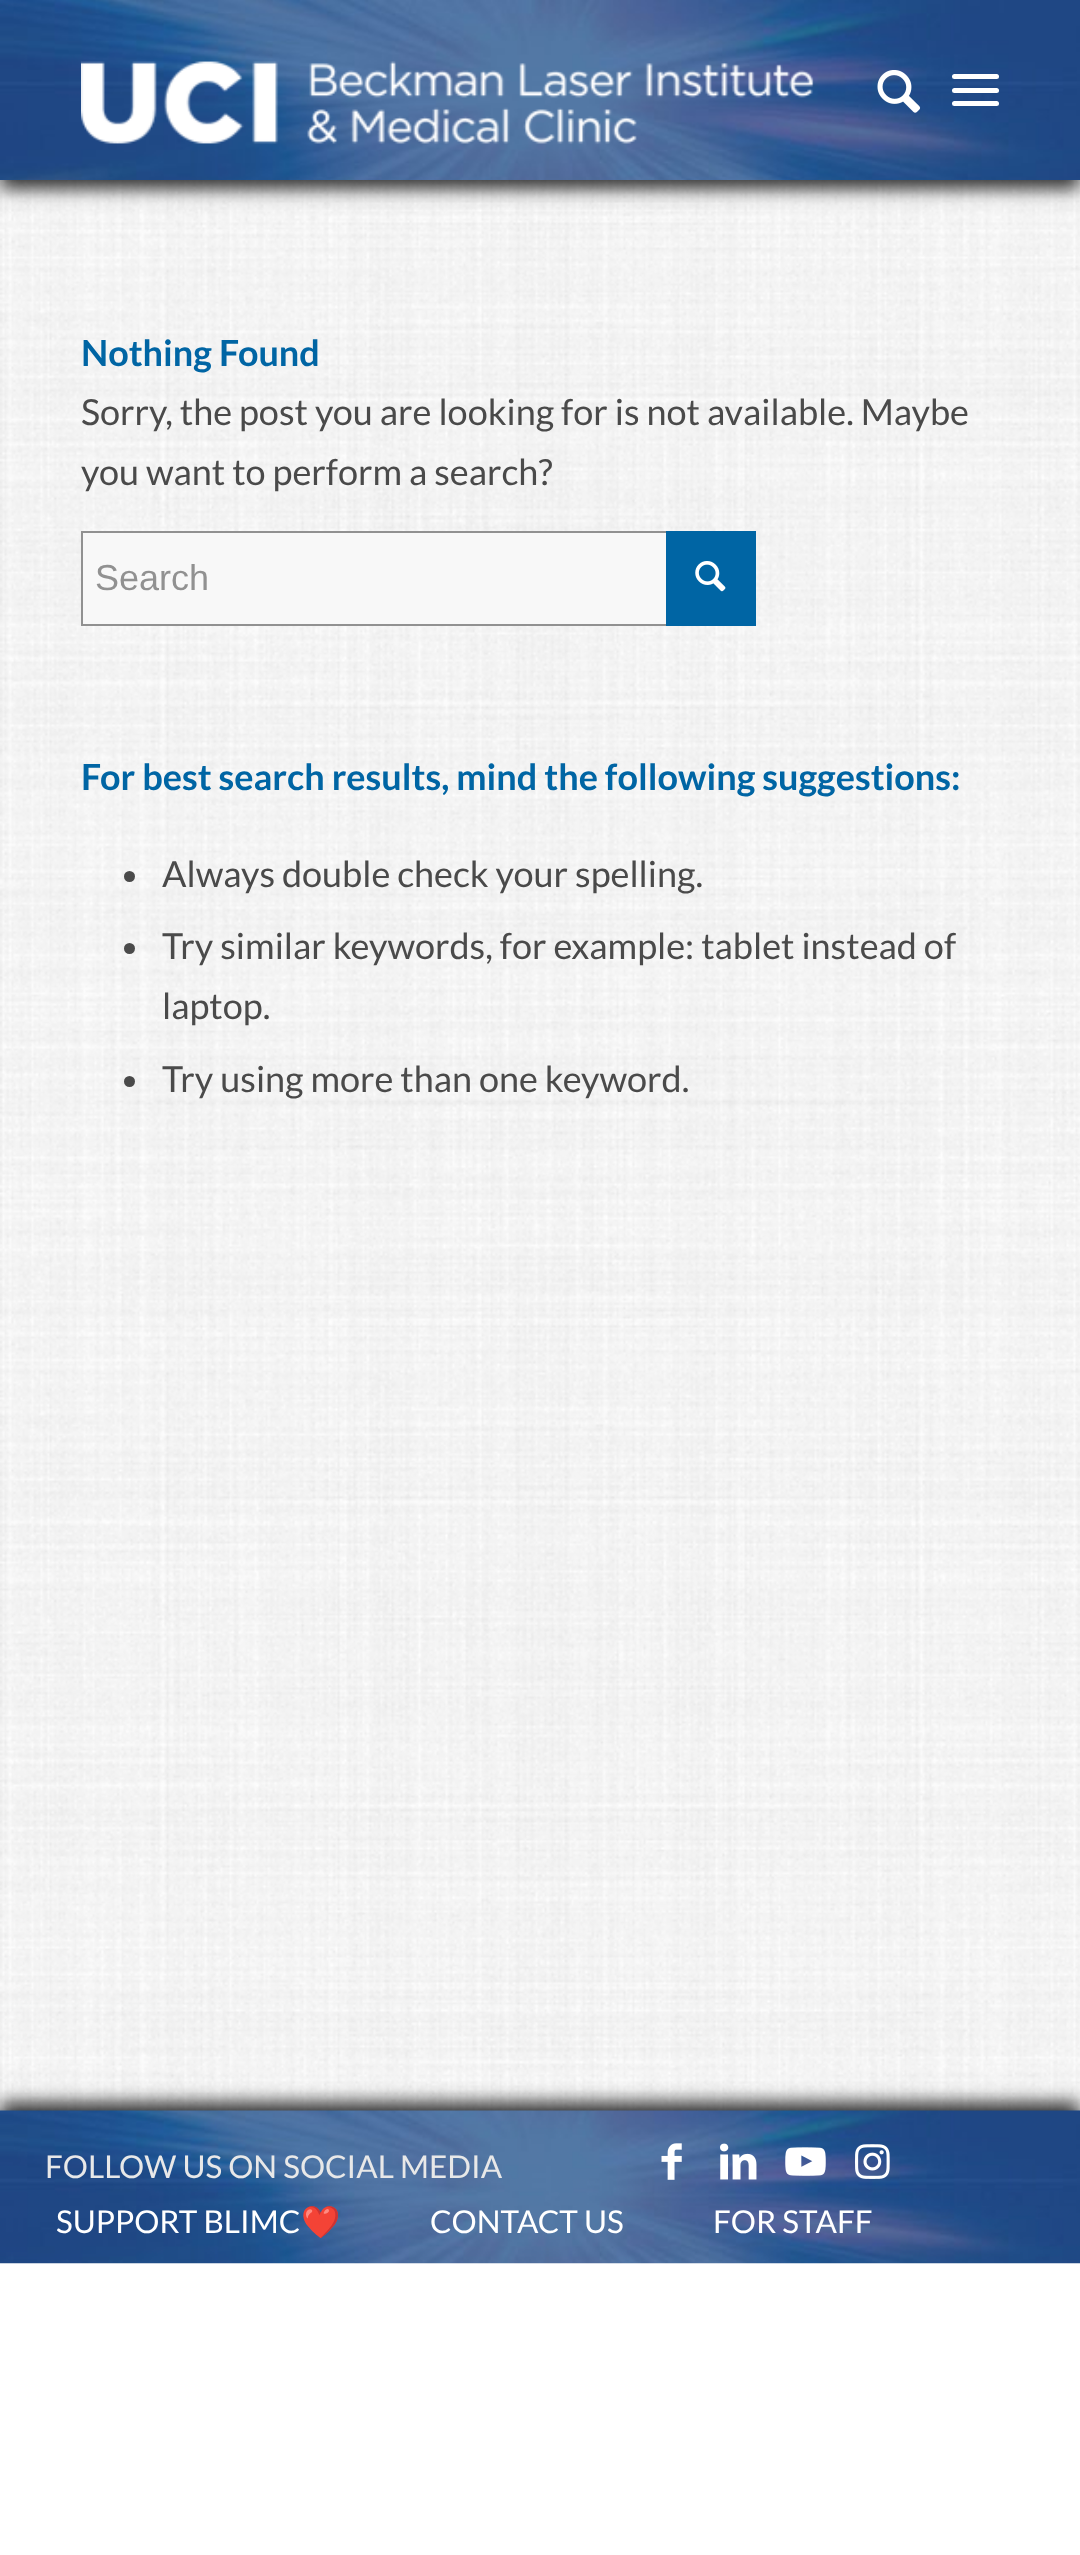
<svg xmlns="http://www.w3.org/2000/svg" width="1080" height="2555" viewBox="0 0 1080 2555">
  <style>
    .t1 { font: bold 36px Lato; fill: #0065a4; }
    .t2 { font: 36px Lato; fill: #4a4a4a; }
    .t3 { font: 36px Liberation Sans; fill: #919191; }
    .t4 { font: 31.5px Lato; fill: #e8e8e8; }
    .t5 { font: 31.5px Lato; fill: #fff; }
    .t6 { font: 31.5px Noto Color Emoji; fill: #fff; }
  </style>
  <defs>
    <clipPath id="clip1"><rect x="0" y="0" width="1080" height="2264"/></clipPath>
  </defs>
  <rect width="100%" height="100%" fill="#fff"/>
  <image x="0" y="180" width="1080" height="1931" href="images/4.png"/>
  <rect x="0" y="9" width="1080" height="180" fill="#000000cc" filter="blur(9px)"/>
  <image x="0" y="0" width="1080" height="180" href="images/1.png"/>
  <image x="81" y="61" width="733" height="83" href="images/2.png"/>
  <image x="877" y="70" width="44" height="43" href="images/3.png"/>
  <rect x="952" y="88" width="47" height="5" rx="2.5" fill="#fff"/>
  <rect x="952" y="74" width="47" height="5" rx="2.5" fill="#fff"/>
  <rect x="952" y="101" width="47" height="5" rx="2.5" fill="#fff"/>
  <text x="81" y="366" class="t1">Nothing Found</text>
  <text x="81" y="425" class="t2">Sorry, the post you are looking for is not available. Maybe</text>
  <text x="81" y="485" class="t2">you want to perform a search?</text>
  <rect x="83" y="533" width="583" height="91" fill="#f8f8f8"/>
  <rect x="82" y="532" width="673" height="93" fill="none" stroke="#919191" stroke-width="2"/>
  <text x="95" y="590" class="t3">Search</text>
  <rect x="666" y="531" width="90" height="95" fill="#0065a4"/>
  <image x="695" y="561" width="31" height="31" href="images/5.png"/>
  <text x="81" y="790" class="t1">For best search results, mind the following suggestions:</text>
  <circle cx="129.5" cy="876.5" r="5.5" fill="#4a4a4a"/>
  <text x="162" y="887" class="t2">Always double check your spelling.</text>
  <circle cx="129.5" cy="948.5" r="5.5" fill="#4a4a4a"/>
  <text x="162" y="959" class="t2">Try similar keywords, for example: tablet instead of</text>
  <text x="162" y="1019" class="t2">laptop.</text>
  <circle cx="129.5" cy="1081.5" r="5.5" fill="#4a4a4a"/>
  <text x="162" y="1092" class="t2">Try using more than one keyword.</text>
  <g clip-path="url(#clip1)">
    <rect x="0" y="2102" width="1080" height="153" fill="#000000cc" filter="blur(9px)"/>
  </g>
  <rect x="0" y="2263" width="1080" height="1" fill="#fff"/>
  <image x="0" y="2110" width="1080" height="154" href="images/6.png"/>
  <text x="45" y="2178" class="t4">FOLLOW US ON SOCIAL MEDIA</text>
  <image x="661" y="2143" width="21" height="37" href="images/7.png"/>
  <image x="720" y="2143" width="37" height="37" href="images/8.png"/>
  <image x="785" y="2147" width="41" height="29" href="images/9.png"/>
  <image x="855" y="2144" width="35" height="35" href="images/10.png"/>
  <text x="56" y="2233" class="t5">SUPPORT BLIMC</text>
  <text x="301" y="2233" class="t6">❤️</text>
  <text x="430" y="2233" class="t5">CONTACT US</text>
  <text x="713" y="2233" class="t5">FOR STAFF</text>
</svg>
